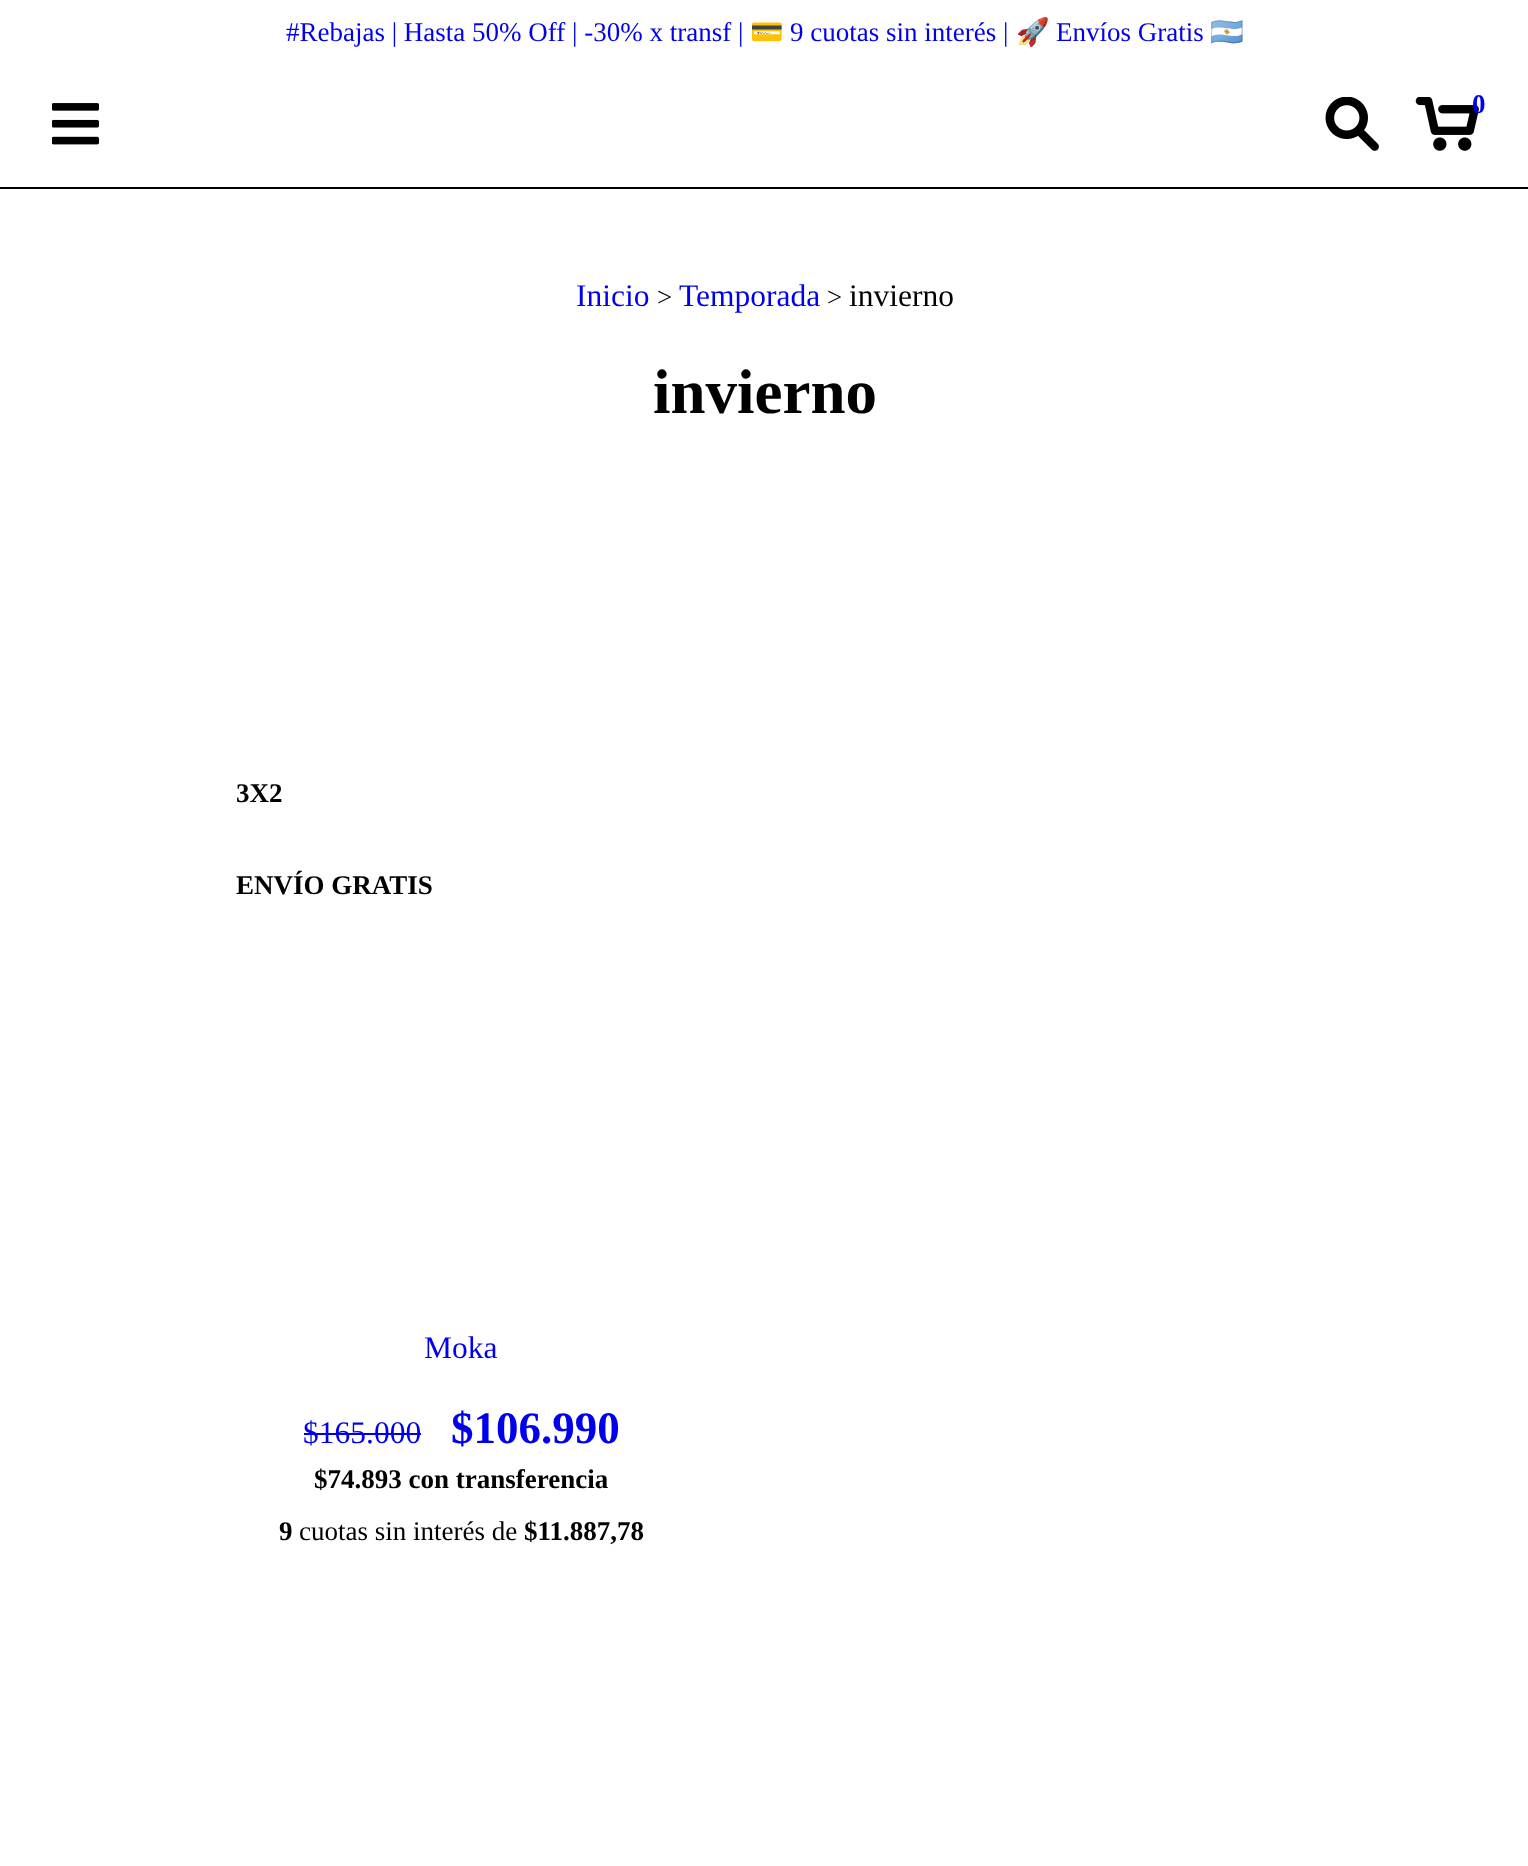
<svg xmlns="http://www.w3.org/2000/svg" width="1528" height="1866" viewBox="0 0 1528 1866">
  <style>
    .t1 { font: 27px Liberation Serif; fill: #00e; }
    .t2 { font: 27px Noto Color Emoji; fill: #00e; }
    .t3 { font: bold 27px Liberation Serif; fill: #00e; }
    .t4 { font: 31.5px Liberation Serif; fill: #00e; }
    .t5 { font: 27px Liberation Serif; fill: #000; }
    .t6 { font: 31.5px Liberation Serif; fill: #000; }
    .t7 { font: bold 63px Liberation Serif; fill: #000; }
    .t8 { font: bold 27px Liberation Serif; fill: #000; }
    .t9 { font: bold 45px Liberation Serif; fill: #00e; }
  </style>
  <rect width="100%" height="100%" fill="#fff"/>
  <text x="286" y="41" class="t1">#Rebajas | Hasta 50% Off | -30% x transf |</text>
  <text x="750" y="41" class="t2">💳</text>
  <text x="790" y="41" class="t1">9 cuotas sin interés |</text>
  <text x="1016" y="41" class="t2">🚀</text>
  <text x="1056" y="41" class="t1">Envíos Gratis</text>
  <text x="1210" y="41" class="t2">🇦🇷</text>
  <image x="52" y="103" width="47" height="42" href="images/1.png"/>
  <image x="1325" y="97" width="54" height="54" href="images/2.png"/>
  <image x="1415" y="97" width="64" height="54" href="images/3.png"/>
  <text x="1472" y="113" class="t3">0</text>
  <rect x="0" y="187" width="1528" height="2" fill="#000"/>
  <text x="576" y="306" class="t4">Inicio</text>
  <text x="657" y="306" class="t5">&gt;</text>
  <text x="679" y="306" class="t4">Temporada</text>
  <text x="827" y="306" class="t5">&gt;</text>
  <text x="849" y="306" class="t6">invierno</text>
  <text x="653" y="413" class="t7">invierno</text>
  <text x="236" y="802" class="t8">3X2</text>
  <text x="236" y="894" class="t8">ENVÍO GRATIS</text>
  <text x="424" y="1358" class="t4">Moka</text>
  <text x="303" y="1443" class="t4">$165.000</text>
  <rect x="304" y="1433" width="117" height="2" fill="#00e"/>
  <text x="451" y="1443" class="t9">$106.990</text>
  <text x="314" y="1488" class="t8">$74.893 con transferencia</text>
  <text x="279" y="1540" class="t8">9</text>
  <text x="299" y="1540" class="t5">cuotas sin interés de</text>
  <text x="524" y="1540" class="t8">$11.887,78</text>
</svg>
